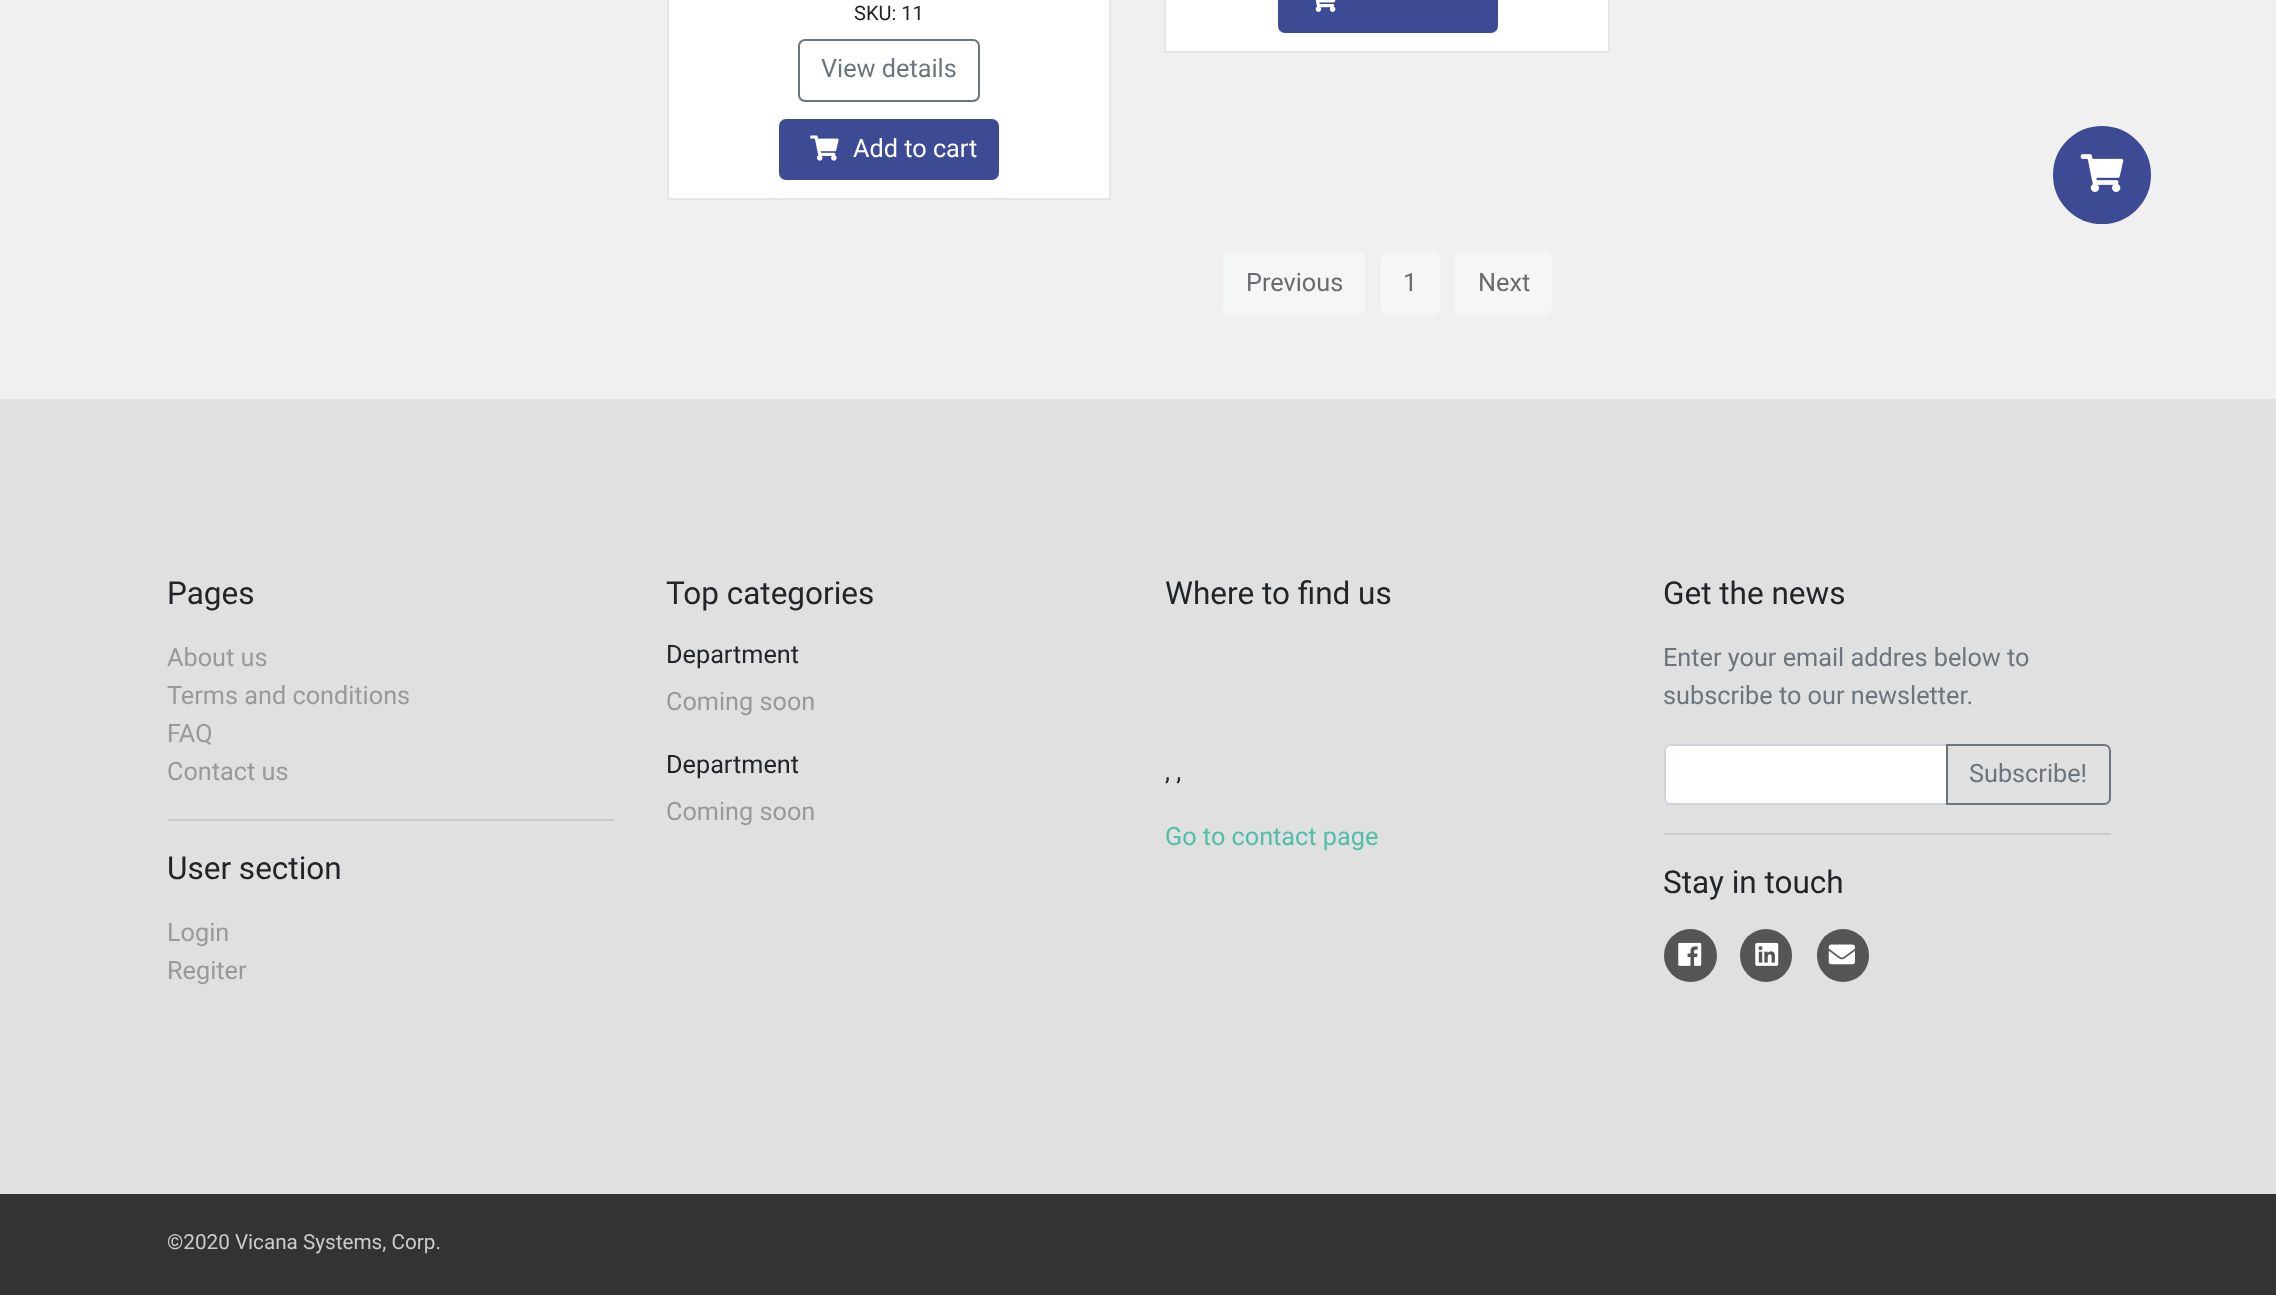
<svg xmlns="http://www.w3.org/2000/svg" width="2276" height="1295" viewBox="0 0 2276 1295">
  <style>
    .t1 { font: 20px Roboto; fill: #212529; }
    .t2 { font: 25.25px Roboto; fill: #6c757d; }
    .t3 { font: 25.25px Roboto; fill: #fff; }
    .t4 { font: 25.25px Roboto; fill: #696c6f; }
    .t5 { font: 31.5px Roboto; fill: #212529; }
    .t6 { font: 25.25px Roboto; fill: #999; }
    .t7 { font: 25.25px Roboto; fill: #212529; }
    .t8 { font: 25.25px Roboto; fill: #4fbfa8; }
    .t9 { font: 20.7px Roboto; fill: #ccc; }
  </style>
  <rect width="100%" height="100%" fill="#f0f0f0"/>
  <rect x="668" y="-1" width="442" height="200" fill="#fff" stroke="#e6e6e6" stroke-width="2"/>
  <text x="854" y="20" class="t1">SKU: 11</text>
  <rect x="799" y="40" width="180" height="61" rx="6" fill="none" stroke="#6c757d" stroke-width="2"/>
  <text x="821" y="77" class="t2">View details</text>
  <rect x="780" y="120" width="218" height="59" rx="6" fill="#3d4b94" stroke="#3d4b94" stroke-width="2"/>
  <image x="810" y="135" width="29" height="26" href="images/1.png"/>
  <text x="853" y="157" class="t3">Add to cart</text>
  <rect x="1165" y="-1" width="444" height="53" fill="#fff" stroke="#e6e6e6" stroke-width="2"/>
  <rect x="1279" y="-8" width="218" height="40" rx="6" fill="#3d4b94" stroke="#3d4b94" stroke-width="2"/>
  <image x="1315" y="0" width="21" height="12" href="images/2.png"/>
  <rect x="1223" y="252" width="142" height="63" rx="7" fill="#f5f6f7"/>
  <text x="1246" y="291" class="t4">Previous</text>
  <rect x="1381" y="252" width="59" height="63" rx="7" fill="#f5f6f7"/>
  <text x="1403" y="291" class="t4">1</text>
  <rect x="1454" y="252" width="98" height="63" rx="7" fill="#f5f6f7"/>
  <text x="1478" y="291" class="t4">Next</text>
  <circle cx="2102" cy="175" r="48" fill="#3d4b94" stroke="#3d4b94" stroke-width="2"/>
  <image x="2080" y="154" width="44" height="38" href="images/3.png"/>
  <rect x="0" y="399" width="2276" height="795" fill="#e0e0e0"/>
  <text x="167" y="604" class="t5">Pages</text>
  <text x="167" y="666" class="t6">About us</text>
  <text x="167" y="704" class="t6">Terms and conditions</text>
  <text x="167" y="742" class="t6">FAQ</text>
  <text x="167" y="780" class="t6">Contact us</text>
  <rect x="168" y="819" width="446" height="2" fill="#cacaca"/>
  <text x="167" y="879" class="t5">User section</text>
  <text x="167" y="941" class="t6">Login</text>
  <text x="167" y="979" class="t6">Regiter</text>
  <text x="666" y="604" class="t5">Top categories</text>
  <text x="666" y="663" class="t7">Department</text>
  <text x="666" y="710" class="t6">Coming soon</text>
  <text x="666" y="773" class="t7">Department</text>
  <text x="666" y="820" class="t6">Coming soon</text>
  <text x="1165" y="604" class="t5">Where to find us</text>
  <text x="1165" y="780" class="t7">, ,</text>
  <text x="1165" y="845" class="t8">Go to contact page</text>
  <text x="1663" y="604" class="t5">Get the news</text>
  <text x="1663" y="666" class="t2">Enter your email addres below to</text>
  <text x="1663" y="704" class="t2">subscribe to our newsletter.</text>
  <path d="M1671 745H1947V804H1671C1667.5 804 1665 801.5 1665 798V751C1665 747.5 1667.5 745 1671 745Z" fill="#fff" stroke="#ced4da" stroke-width="2"/>
  <path d="M1947 745H2104C2107.5 745 2110 747.5 2110 751V798C2110 801.5 2107.5 804 2104 804H1947Z" fill="none" stroke="#6c757d" stroke-width="2"/>
  <text x="1969" y="782" class="t2">Subscribe!</text>
  <rect x="1664" y="833" width="447" height="2" fill="#cacaca"/>
  <text x="1663" y="893" class="t5">Stay in touch</text>
  <circle cx="1690.5" cy="955.5" r="26.5" fill="#555"/>
  <image x="1678" y="942" width="24" height="24" href="images/4.png"/>
  <rect x="1740" y="929" width="52" height="53" rx="26" fill="#555"/>
  <image x="1755" y="942" width="24" height="24" href="images/5.png"/>
  <rect x="1817" y="929" width="52" height="53" rx="26" fill="#555"/>
  <image x="1828" y="944" width="27" height="21" href="images/6.png"/>
  <rect x="0" y="1194" width="2276" height="101" fill="#333"/>
  <text x="167" y="1249" class="t9">©2020 Vicana Systems, Corp.</text>
</svg>
